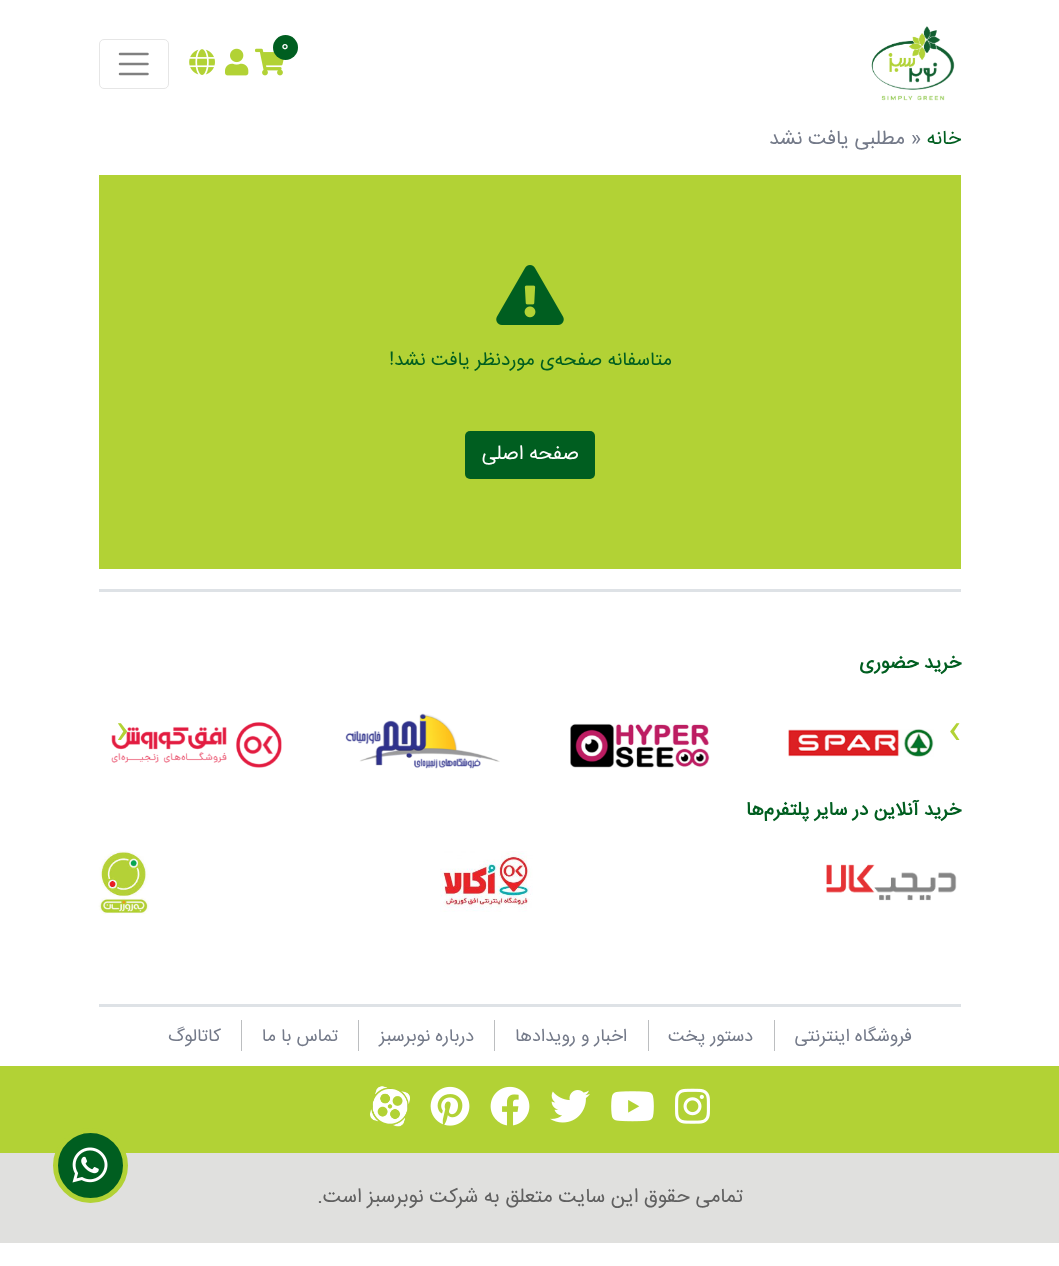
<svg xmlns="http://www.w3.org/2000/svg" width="1059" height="1266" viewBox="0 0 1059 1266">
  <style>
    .t1 { font: 18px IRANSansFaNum; fill: #fff; }
    .t2 { font: 20px IRANSansFaNum; direction: rtl; fill: #005e20; }
    .t3 { font: 20px IRANSansFaNum; fill: #747a89; }
    .t4 { font: 20px IRANSansFaNum; direction: rtl; fill: #747a89; }
    .t5 { font: 19px IRANSansFaNum; direction: rtl; fill: #005e20; }
    .t6 { font: 20px IRANSansFaNum; direction: rtl; fill: #fff; }
    .t7 { font: bold 19px IRANSansFaNum; direction: rtl; fill: #005e20; }
    .t8 { font: 40px IRANSansFaNum; fill: #b2d235; }
    .t9 { font: 18px IRANSansFaNum; direction: rtl; fill: #747a89; }
    .t10 { font: 20px IRANSansFaNum; direction: rtl; fill: #606060; }
  </style>
  <rect width="100%" height="100%" fill="#fff"/>
  <image x="871" y="26" width="84" height="75" href="images/1.png"/>
  <image x="255" y="48" width="29" height="28" href="images/2.png"/>
  <circle cx="285.5" cy="47.5" r="12.5" fill="#005e20"/>
  <text x="281" y="51" class="t1">۰</text>
  <image x="225" y="48" width="24" height="28" href="images/3.png"/>
  <rect x="99.5" y="39.5" width="69" height="49" rx="4.5" fill="none" stroke="#e6e6e6"/>
  <path d="M120 54H147.5M120 64H147.5M120 74H147.5" fill="none" stroke="#808080" stroke-width="2.5" stroke-linecap="round"/>
  <image x="189" y="49" width="26" height="26" href="images/4.png"/>
  <text x="961" y="144" class="t2">خانه</text>
  <text x="911" y="144" class="t3">»</text>
  <text x="905" y="144" class="t4">مطلبی یافت نشد</text>
  <rect x="99" y="175" width="862" height="394" fill="#b2d235"/>
  <image x="496" y="265" width="68" height="60" href="images/5.png"/>
  <text x="672" y="365" class="t5">متاسفانه صفحه‌ی موردنظر یافت نشد!</text>
  <rect x="465" y="431" width="130" height="48" rx="5" fill="#005e20"/>
  <text x="579" y="459" class="t6">صفحه اصلی</text>
  <rect x="99" y="589" width="862" height="3" fill="#dee2e6"/>
  <rect x="99" y="1004" width="862" height="3" fill="#dee2e6"/>
  <text x="961" y="668" class="t7">خرید حضوری</text>
  <image x="788" y="729" width="146" height="28" href="images/6.png"/>
  <image x="570" y="723" width="140" height="45" href="images/7.png"/>
  <image x="345" y="713" width="155" height="56" href="images/8.png"/>
  <image x="111" y="722" width="171" height="46" href="images/9.png"/>
  <text x="948" y="741" class="t8">‹</text>
  <text x="116" y="741" class="t8">›</text>
  <text x="961" y="815" class="t7">خرید آنلاین در سایر پلتفرم‌ها</text>
  <image x="826" y="864" width="131" height="37" href="images/10.png"/>
  <image x="440" y="851" width="93" height="61" href="images/11.png"/>
  <image x="98" y="851" width="51" height="63" href="images/12.png"/>
  <text x="912" y="1041" class="t9">فروشگاه اینترنتی</text>
  <rect x="774" y="1020" width="1" height="31" fill="#bcbec0"/>
  <text x="753" y="1041" class="t9">دستور پخت</text>
  <rect x="648" y="1020" width="1" height="31" fill="#bcbec0"/>
  <text x="627" y="1041" class="t9">اخبار و رویدادها</text>
  <rect x="494" y="1020" width="1" height="31" fill="#bcbec0"/>
  <text x="474" y="1041" class="t9">درباره نوبرسبز</text>
  <rect x="358" y="1020" width="1" height="31" fill="#bcbec0"/>
  <text x="338" y="1041" class="t9">تماس با ما</text>
  <rect x="241" y="1020" width="1" height="31" fill="#bcbec0"/>
  <text x="221" y="1041" class="t9">کاتالوگ</text>
  <rect x="0" y="1066" width="1059" height="87" fill="#b2d235"/>
  <image x="675" y="1088" width="35" height="36" href="images/13.png"/>
  <image x="611" y="1091" width="43" height="31" href="images/14.png"/>
  <image x="550" y="1090" width="40" height="33" href="images/15.png"/>
  <image x="490" y="1086" width="40" height="40" href="images/16.png"/>
  <image x="430" y="1086" width="40" height="40" href="images/17.png"/>
  <image x="370" y="1086" width="40" height="41" href="images/18.png"/>
  <rect x="0" y="1153" width="1059" height="90" fill="#e0e0de"/>
  <text x="743" y="1202" class="t10">تمامی حقوق این سایت متعلق به شرکت نوبرسبز است.</text>
  <circle cx="90.5" cy="1165.5" r="35" fill="#005e20" stroke="#b2d235" stroke-width="5"/>
  <image x="72" y="1147" width="36" height="36" href="images/19.png"/>
</svg>
